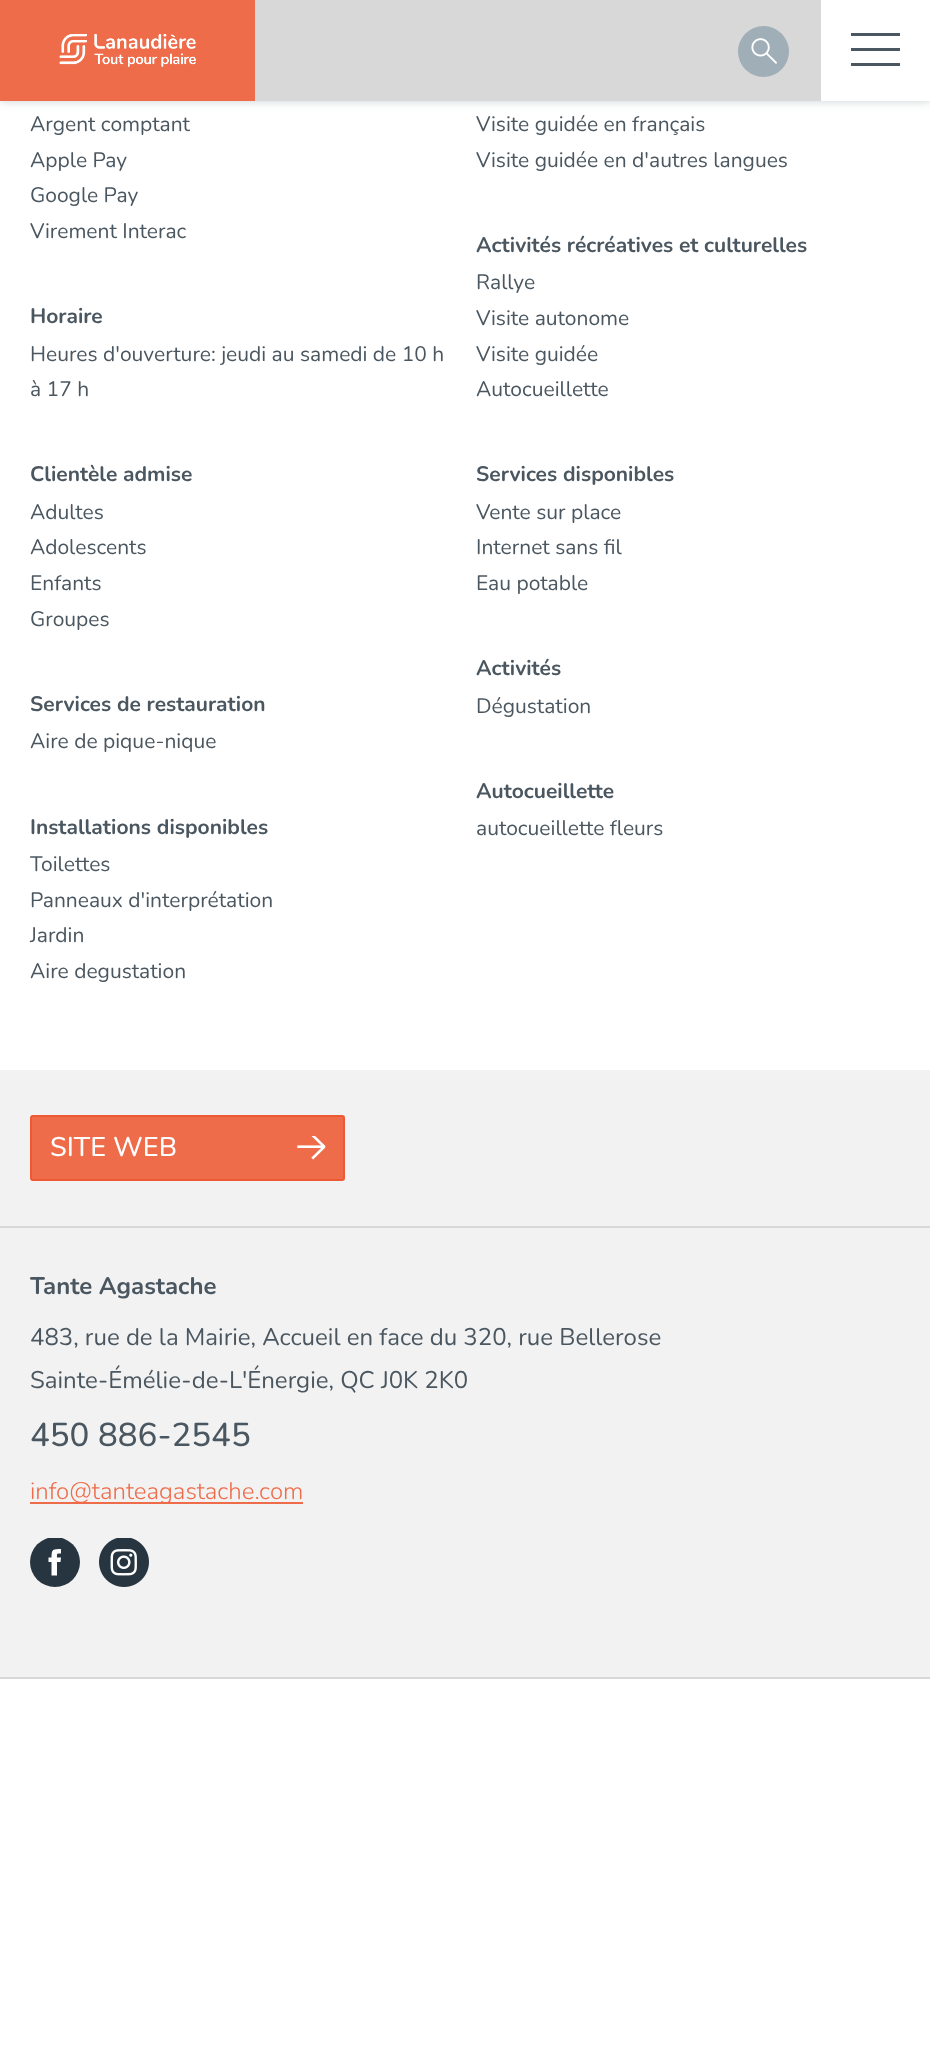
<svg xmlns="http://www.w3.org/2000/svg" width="930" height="2064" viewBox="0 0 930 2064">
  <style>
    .t1 { font: 200 21px 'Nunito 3'; fill: #4b5760; }
    .t2 { font: 200 21px 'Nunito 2'; fill: #4b5760; }
    .t3 { font: 200 27px Nunito; fill: #fff; }
    .t4 { font: 200 24px 'Nunito 2'; fill: #4b5760; }
    .t5 { font: 200 24px 'Nunito 3'; fill: #4b5760; }
    .t6 { font: 200 33px Nunito; fill: #4b5760; }
    .t7 { font: 200 24px 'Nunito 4'; fill: #ee6c4a; }
  </style>
  <defs>
    <clipPath id="clip1"><rect x="30" y="1538" width="50" height="49"/></clipPath>
  </defs>
  <rect width="100%" height="100%" fill="#fff"/>
  <rect x="0" y="2" width="930" height="100" fill="#26354033" filter="blur(4px)"/>
  <rect x="255" y="0" width="566" height="101" fill="#d8d8d8"/>
  <rect x="0" y="0" width="255" height="101" fill="#ee6c4a"/>
  <image x="59" y="34" width="137" height="33" href="images/1.png"/>
  <circle cx="763.5" cy="51.5" r="25.5" fill="#a0aeb7"/>
  <image x="751" y="38" width="26" height="26" href="images/2.png"/>
  <rect x="821" y="0" width="109" height="101" fill="#fff"/>
  <rect x="851" y="48" width="49" height="3" fill="#4b5760"/>
  <rect x="851" y="33" width="49" height="3" fill="#4b5760"/>
  <rect x="851" y="63" width="49" height="3" fill="#4b5760"/>
  <text x="30" y="131" class="t1">Argent comptant</text>
  <text x="30" y="167" class="t1">Apple Pay</text>
  <text x="30" y="202" class="t1">Google Pay</text>
  <text x="30" y="238" class="t1">Virement Interac</text>
  <text x="476" y="131" class="t1">Visite guidée en français</text>
  <text x="476" y="167" class="t1">Visite guidée en d'autres langues</text>
  <text x="30" y="323" class="t2">Horaire</text>
  <text x="30" y="361" class="t1">Heures d'ouverture: jeudi au samedi de 10 h</text>
  <text x="30" y="396" class="t1">à 17 h</text>
  <text x="476" y="252" class="t2">Activités récréatives et culturelles</text>
  <text x="476" y="289" class="t1">Rallye</text>
  <text x="476" y="325" class="t1">Visite autonome</text>
  <text x="476" y="361" class="t1">Visite guidée</text>
  <text x="476" y="396" class="t1">Autocueillette</text>
  <text x="30" y="481" class="t2">Clientèle admise</text>
  <text x="30" y="519" class="t1">Adultes</text>
  <text x="30" y="554" class="t1">Adolescents</text>
  <text x="30" y="590" class="t1">Enfants</text>
  <text x="30" y="626" class="t1">Groupes</text>
  <text x="476" y="481" class="t2">Services disponibles</text>
  <text x="476" y="519" class="t1">Vente sur place</text>
  <text x="476" y="554" class="t1">Internet sans fil</text>
  <text x="476" y="590" class="t1">Eau potable</text>
  <text x="476" y="675" class="t2">Activités</text>
  <text x="476" y="713" class="t1">Dégustation</text>
  <text x="30" y="711" class="t2">Services de restauration</text>
  <text x="30" y="748" class="t1">Aire de pique-nique</text>
  <text x="476" y="798" class="t2">Autocueillette</text>
  <text x="476" y="835" class="t1">autocueillette fleurs</text>
  <text x="30" y="834" class="t2">Installations disponibles</text>
  <text x="30" y="871" class="t1">Toilettes</text>
  <text x="30" y="907" class="t1">Panneaux d'interprétation</text>
  <text x="30" y="942" class="t1">Jardin</text>
  <text x="30" y="978" class="t1">Aire degustation</text>
  <rect x="0" y="1070" width="930" height="607" fill="#f2f2f2"/>
  <rect x="0" y="1226" width="930" height="2" fill="#d8d8d8"/>
  <rect x="31" y="1116" width="313" height="64" rx="2" fill="#ee6c4a" stroke="#ec5933" stroke-width="2"/>
  <text x="50" y="1156" class="t3">SITE WEB</text>
  <image x="297" y="1136" width="29" height="24" href="images/3.png"/>
  <rect x="0" y="1677" width="930" height="2" fill="#d8d8d8"/>
  <text x="30" y="1294" class="t4">Tante Agastache</text>
  <text x="30" y="1345" class="t5">483, rue de la Mairie, Accueil en face du 320, rue Bellerose</text>
  <text x="30" y="1388" class="t5">Sainte-Émélie-de-L'Énergie, QC J0K 2K0</text>
  <text x="30" y="1446" class="t6">450 886-2545</text>
  <rect x="30" y="1502" width="273" height="2" fill="#ee6c4a"/>
  <text x="30" y="1499" class="t7">info@tanteagastache.com</text>
  <g clip-path="url(#clip1)">
    <circle cx="55" cy="1562" r="25" fill="#263540"/>
  </g>
  <path d="M51.5 1575.5V1562H48.5V1557.5H51.5C51.5 1549 53 1549 61 1549V1553.5C56.5 1553.5 57 1553.5 57 1557.5H61L60.5 1562H57V1575.5Z" fill="#fff" fill-rule="evenodd"/>
  <image x="99" y="1538" width="50" height="49" href="images/4.png"/>
</svg>
